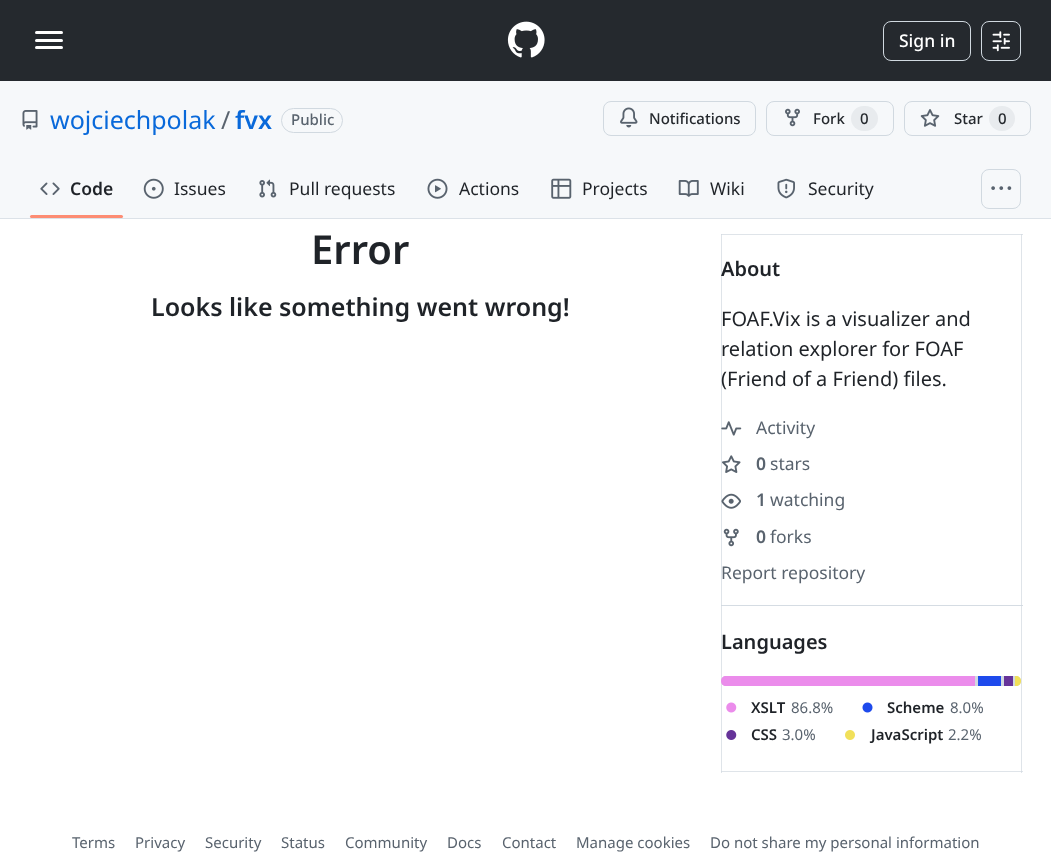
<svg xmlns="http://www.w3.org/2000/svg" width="1051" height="853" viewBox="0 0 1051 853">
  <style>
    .t1 { font: 500 17.5px Noto Sans; fill: #fff; }
    .t2 { font: 25px Noto Sans; fill: #0969da; }
    .t3 { font: 25px Noto Sans; fill: #59636e; }
    .t4 { font: 600 25px Noto Sans; fill: #0969da; }
    .t5 { font: 500 15px Noto Sans; fill: #59636e; }
    .t6 { font: 500 15px Noto Sans; fill: #25292e; }
    .t7 { font: 600 17.5px Noto Sans; fill: #1f2328; }
    .t8 { font: 17.5px Noto Sans; fill: #1f2328; }
    .t9 { font: 600 40px Noto Sans; fill: #1f2328; }
    .t10 { font: 600 25px Noto Sans; fill: #1f2328; }
    .t11 { font: 600 20px Noto Sans; fill: #1f2328; }
    .t12 { font: 20px Noto Sans; fill: #1f2328; }
    .t13 { font: 17.5px Noto Sans; fill: #59636e; }
    .t14 { font: 600 17.5px Noto Sans; fill: #59636e; }
    .t15 { font: 600 15px Noto Sans; fill: #1f2328; }
    .t16 { font: 15px Noto Sans; fill: #59636e; }
  </style>
  <rect width="100%" height="100%" fill="#fff"/>
  <rect x="721" y="234" width="1" height="539" fill="#dfe4e9"/>
  <rect x="1021" y="234" width="1" height="372" fill="#dfe4e9"/>
  <rect x="721" y="771" width="302" height="1" fill="#dfe4e9"/>
  <rect x="721" y="771" width="1" height="1" fill="#d5dce3"/>
  <rect x="1021" y="605" width="1" height="168" fill="#dfe4e9"/>
  <rect x="1021" y="771" width="1" height="1" fill="#d5dce3"/>
  <rect x="0" y="0" width="1051" height="81" fill="#25292e"/>
  <rect x="35" y="31" width="28" height="3" rx="1.5" fill="#fff"/>
  <rect x="35" y="39" width="28" height="3" rx="1.5" fill="#fff"/>
  <rect x="35" y="46" width="28" height="3" rx="1.5" fill="#fff"/>
  <image x="507" y="21" width="38" height="37" href="images/1.png"/>
  <rect x="883.5" y="21.5" width="87" height="39" rx="7.5" fill="none" stroke="#d1d9e0"/>
  <text x="899" y="47" class="t1">Sign in</text>
  <rect x="981.5" y="21.5" width="39" height="39" rx="7.5" fill="none" stroke="#d1d9e0"/>
  <image x="992" y="31" width="18" height="21" href="images/2.png"/>
  <rect x="0" y="81" width="1051" height="137" fill="#f6f8fa"/>
  <image x="22" y="110" width="16" height="20" href="images/3.png"/>
  <text x="50" y="129" class="t2">wojciechpolak</text>
  <text x="221" y="129" class="t3">/</text>
  <text x="235" y="129" class="t4">fvx</text>
  <rect x="281.5" y="108.5" width="61" height="24" rx="12" fill="none" stroke="#d1d9e0"/>
  <text x="291" y="125" class="t5">Public</text>
  <rect x="603.5" y="101.5" width="152" height="34" rx="7.5" fill="none" stroke="#d1d9e0"/>
  <image x="620" y="107" width="18" height="21" href="images/4.png"/>
  <text x="649" y="124" class="t6">Notifications</text>
  <rect x="766.5" y="101.5" width="127" height="34" rx="7.5" fill="none" stroke="#d1d9e0"/>
  <image x="785" y="108" width="15" height="19" href="images/5.png"/>
  <text x="813" y="124" class="t6">Fork</text>
  <rect x="851" y="106" width="27" height="25" rx="12.5" fill="#e8ebee"/>
  <text x="860" y="124" class="t6">0</text>
  <rect x="904.5" y="101.5" width="126" height="34" rx="7.5" fill="none" stroke="#d1d9e0"/>
  <image x="920" y="109" width="20" height="18" href="images/6.png"/>
  <text x="954" y="124" class="t6">Star</text>
  <rect x="989" y="106" width="26" height="25" rx="12.5" fill="#e8ebee"/>
  <text x="998" y="124" class="t6">0</text>
  <rect x="0" y="218" width="1051" height="1" fill="#dce2e8"/>
  <image x="40" y="182" width="20" height="13" href="images/7.png"/>
  <text x="70" y="195" class="t7">Code</text>
  <rect x="30" y="215" width="93" height="3" rx="1.5" fill="#fd8c73"/>
  <image x="143" y="178" width="21" height="21" href="images/8.png"/>
  <text x="174" y="195" class="t8">Issues</text>
  <image x="259" y="179" width="18" height="19" href="images/9.png"/>
  <text x="289" y="195" class="t8">Pull requests</text>
  <image x="427" y="178" width="21" height="21" href="images/10.png"/>
  <text x="459" y="195" class="t8">Actions</text>
  <image x="551" y="178" width="21" height="21" href="images/11.png"/>
  <text x="582" y="195" class="t8">Projects</text>
  <image x="678" y="180" width="21" height="17" href="images/12.png"/>
  <text x="710" y="195" class="t8">Wiki</text>
  <image x="777" y="178" width="18" height="21" href="images/13.png"/>
  <text x="808" y="195" class="t8">Security</text>
  <rect x="981.5" y="169.5" width="39" height="39" rx="7.5" fill="none" stroke="#d1d9e0"/>
  <image x="991" y="186" width="21" height="4" href="images/14.png"/>
  <text x="311" y="264" class="t9">Error</text>
  <text x="151" y="316" class="t10">Looks like something went wrong!</text>
  <rect x="721" y="234" width="302" height="1" fill="#dfe4e9"/>
  <rect x="721" y="234" width="1" height="1" fill="#d5dce3"/>
  <rect x="1021" y="234" width="1" height="1" fill="#d5dce3"/>
  <text x="721" y="276" class="t11">About</text>
  <text x="721" y="326" class="t12">FOAF.Vix is a visualizer and</text>
  <text x="721" y="356" class="t12">relation explorer for FOAF</text>
  <text x="721" y="386" class="t12">(Friend of a Friend) files.</text>
  <image x="721" y="421" width="21" height="15" href="images/15.png"/>
  <text x="756" y="434" class="t13">Activity</text>
  <image x="722" y="455" width="19" height="18" href="images/16.png"/>
  <text x="756" y="470" class="t14">0</text>
  <text x="770" y="470" class="t13">stars</text>
  <image x="721" y="493" width="20" height="16" href="images/17.png"/>
  <text x="756" y="506" class="t14">1</text>
  <text x="770" y="506" class="t13">watching</text>
  <image x="723" y="528" width="16" height="19" href="images/18.png"/>
  <text x="756" y="543" class="t14">0</text>
  <text x="770" y="543" class="t13">forks</text>
  <text x="721" y="579" class="t13">Report repository</text>
  <rect x="721" y="605" width="302" height="1" fill="#d5dce3"/>
  <rect x="721" y="605" width="1" height="1" fill="#d1d9e0"/>
  <rect x="1021" y="605" width="1" height="1" fill="#d1d9e0"/>
  <text x="721" y="649" class="t11">Languages</text>
  <rect x="721" y="676" width="300" height="10" rx="5" fill="#d1d9e0"/>
  <path d="M726 676H975V686H726C723 686 721 684 721 681C721 678 723 676 726 676Z" fill="#eb8ceb"/>
  <rect x="978" y="676" width="23" height="10" fill="#1e4aec"/>
  <rect x="1004" y="676" width="9" height="10" fill="#639"/>
  <path d="M1015 676H1016C1019 676 1021 678 1021 681C1021 684 1019 686 1016 686H1015Z" fill="#f1e05a"/>
  <image x="726" y="702" width="11" height="11" href="images/19.png"/>
  <text x="751" y="713" class="t15">XSLT</text>
  <text x="791" y="713" class="t16">86.8%</text>
  <image x="862" y="702" width="11" height="11" href="images/20.png"/>
  <text x="887" y="713" class="t15">Scheme</text>
  <text x="950" y="713" class="t16">8.0%</text>
  <image x="726" y="730" width="11" height="10" href="images/21.png"/>
  <text x="751" y="740" class="t15">CSS</text>
  <text x="782" y="740" class="t16">3.0%</text>
  <image x="845" y="730" width="10" height="10" href="images/22.png"/>
  <text x="871" y="740" class="t15">JavaScript</text>
  <text x="948" y="740" class="t16">2.2%</text>
  <text x="72" y="848" class="t16">Terms</text>
  <text x="135" y="848" class="t16">Privacy</text>
  <text x="205" y="848" class="t16">Security</text>
  <text x="281" y="848" class="t16">Status</text>
  <text x="345" y="848" class="t16">Community</text>
  <text x="447" y="848" class="t16">Docs</text>
  <text x="502" y="848" class="t16">Contact</text>
  <text x="576" y="848" class="t16">Manage cookies</text>
  <text x="710" y="848" class="t16">Do not share my personal information</text>
</svg>
